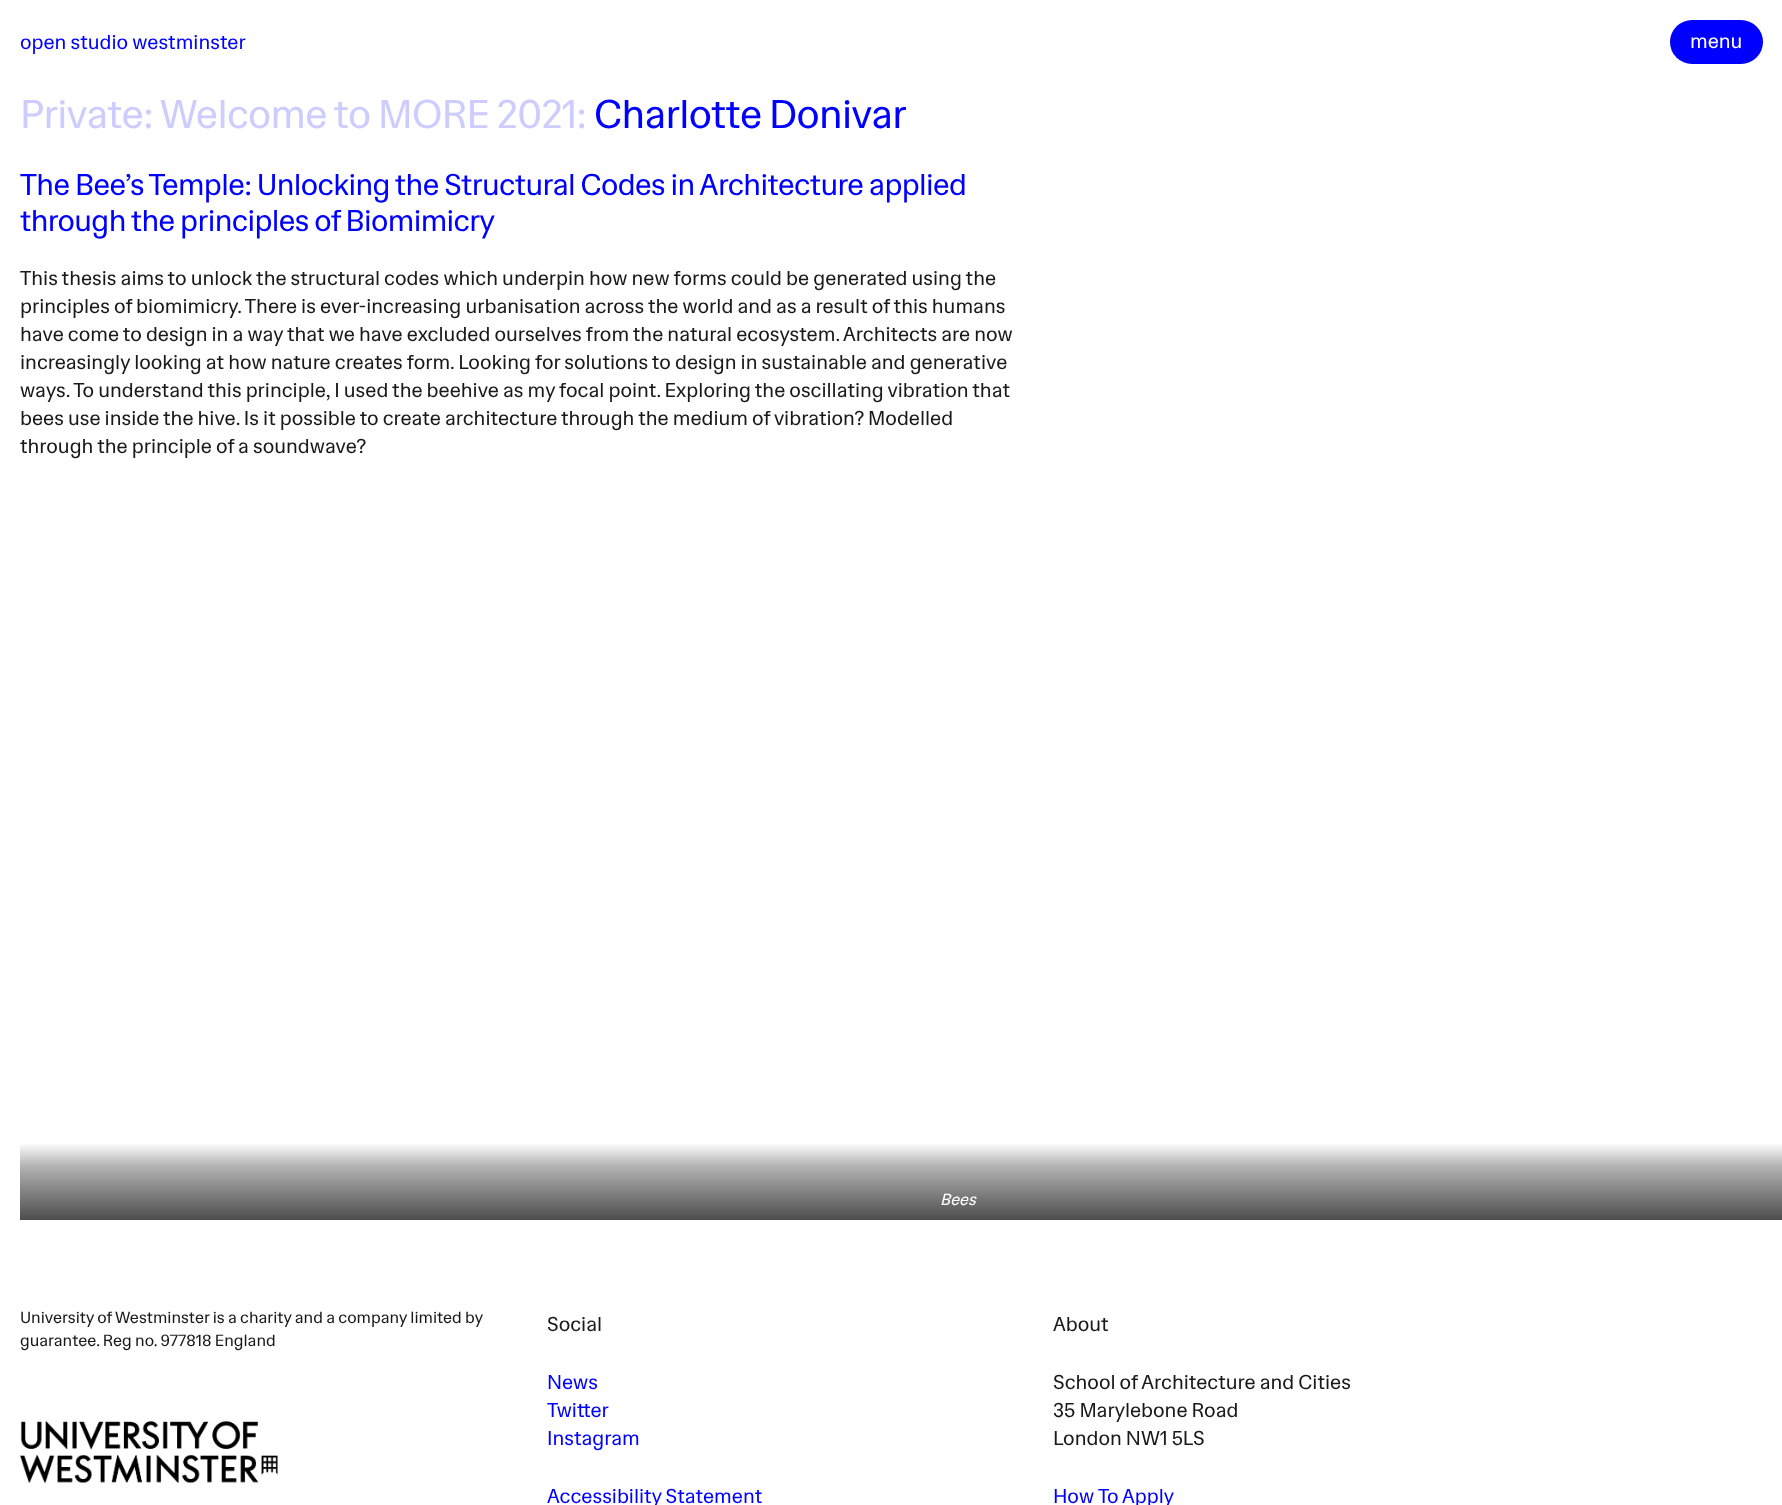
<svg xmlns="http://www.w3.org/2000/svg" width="1782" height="1505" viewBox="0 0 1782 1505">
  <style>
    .t1 { font: 20px Hedvig Letters Sans; fill: #00f; }
    .t2 { font: 20px Hedvig Letters Sans; fill: #fff; }
    .t3 { font: 40px Hedvig Letters Sans; letter-spacing: -0.62px; fill: #ccf; }
    .t4 { font: 40px Hedvig Letters Sans; letter-spacing: -0.62px; fill: #00f; }
    .t5 { font: 30px Hedvig Letters Sans; letter-spacing: -0.62px; fill: #00f; }
    .t6 { font: 20px Hedvig Letters Sans; fill: #191919; }
    .t7 { font: italic 16px Hedvig Letters Sans; fill: #fff; }
    .t8 { font: 16.25px Hedvig Letters Sans; fill: #191919; }
  </style>
  <defs>
    <linearGradient id="g1" gradientUnits="userSpaceOnUse" x1="958" y1="1220" x2="958" y2="1143"><stop offset="0" stop-color="#4d4d4d"/><stop offset="0.7" stop-color="#b3b3b3"/><stop offset="1" stop-color="#fff"/></linearGradient>
  </defs>
  <rect width="100%" height="100%" fill="#fff"/>
  <text x="20" y="49" class="t1">open studio westminster</text>
  <rect x="1670" y="20" width="93" height="44" rx="22" fill="#00f"/>
  <text x="1690" y="48" class="t2">menu</text>
  <text x="20" y="128" class="t3">Private: Welcome to MORE 2021:</text>
  <text x="594" y="128" class="t4">Charlotte Donivar</text>
  <text x="20" y="195" class="t5">The Bee’s Temple: Unlocking the Structural Codes in Architecture applied</text>
  <text x="20" y="231" class="t5">through the principles of Biomimicry</text>
  <text x="20" y="285" class="t6">This thesis aims to unlock the structural codes which underpin how new forms could be generated using the</text>
  <text x="20" y="313" class="t6">principles of biomimicry. There is ever-increasing urbanisation across the world and as a result of this humans</text>
  <text x="20" y="341" class="t6">have come to design in a way that we have excluded ourselves from the natural ecosystem. Architects are now</text>
  <text x="20" y="369" class="t6">increasingly looking at how nature creates form. Looking for solutions to design in sustainable and generative</text>
  <text x="20" y="397" class="t6">ways. To understand this principle, I used the beehive as my focal point. Exploring the oscillating vibration that</text>
  <text x="20" y="425" class="t6">bees use inside the hive. Is it possible to create architecture through the medium of vibration? Modelled</text>
  <text x="20" y="453" class="t6">through the principle of a soundwave?</text>
  <rect x="20" y="1144" width="1762" height="76" fill="url(#g1)"/>
  <text x="940" y="1205" class="t7">Bees</text>
  <text x="20" y="1323" class="t8">University of Westminster is a charity and a company limited by</text>
  <text x="20" y="1346" class="t8">guarantee. Reg no. 977818 England</text>
  <image x="20" y="1421" width="258" height="62" href="images/1.png"/>
  <text x="547" y="1331" class="t6">Social</text>
  <text x="547" y="1389" class="t1">News</text>
  <text x="547" y="1417" class="t1">Twitter</text>
  <text x="547" y="1445" class="t1">Instagram</text>
  <text x="547" y="1503" class="t1">Accessibility Statement</text>
  <text x="1053" y="1331" class="t6">About</text>
  <text x="1053" y="1389" class="t6">School of Architecture and Cities</text>
  <text x="1053" y="1417" class="t6">35 Marylebone Road</text>
  <text x="1053" y="1445" class="t6">London NW1 5LS</text>
  <text x="1053" y="1503" class="t1">How</text>
  <text x="1098" y="1503" class="t1">T</text>
  <text x="1107" y="1503" class="t1">o</text>
  <text x="1122" y="1503" class="t1">Apply</text>
</svg>
